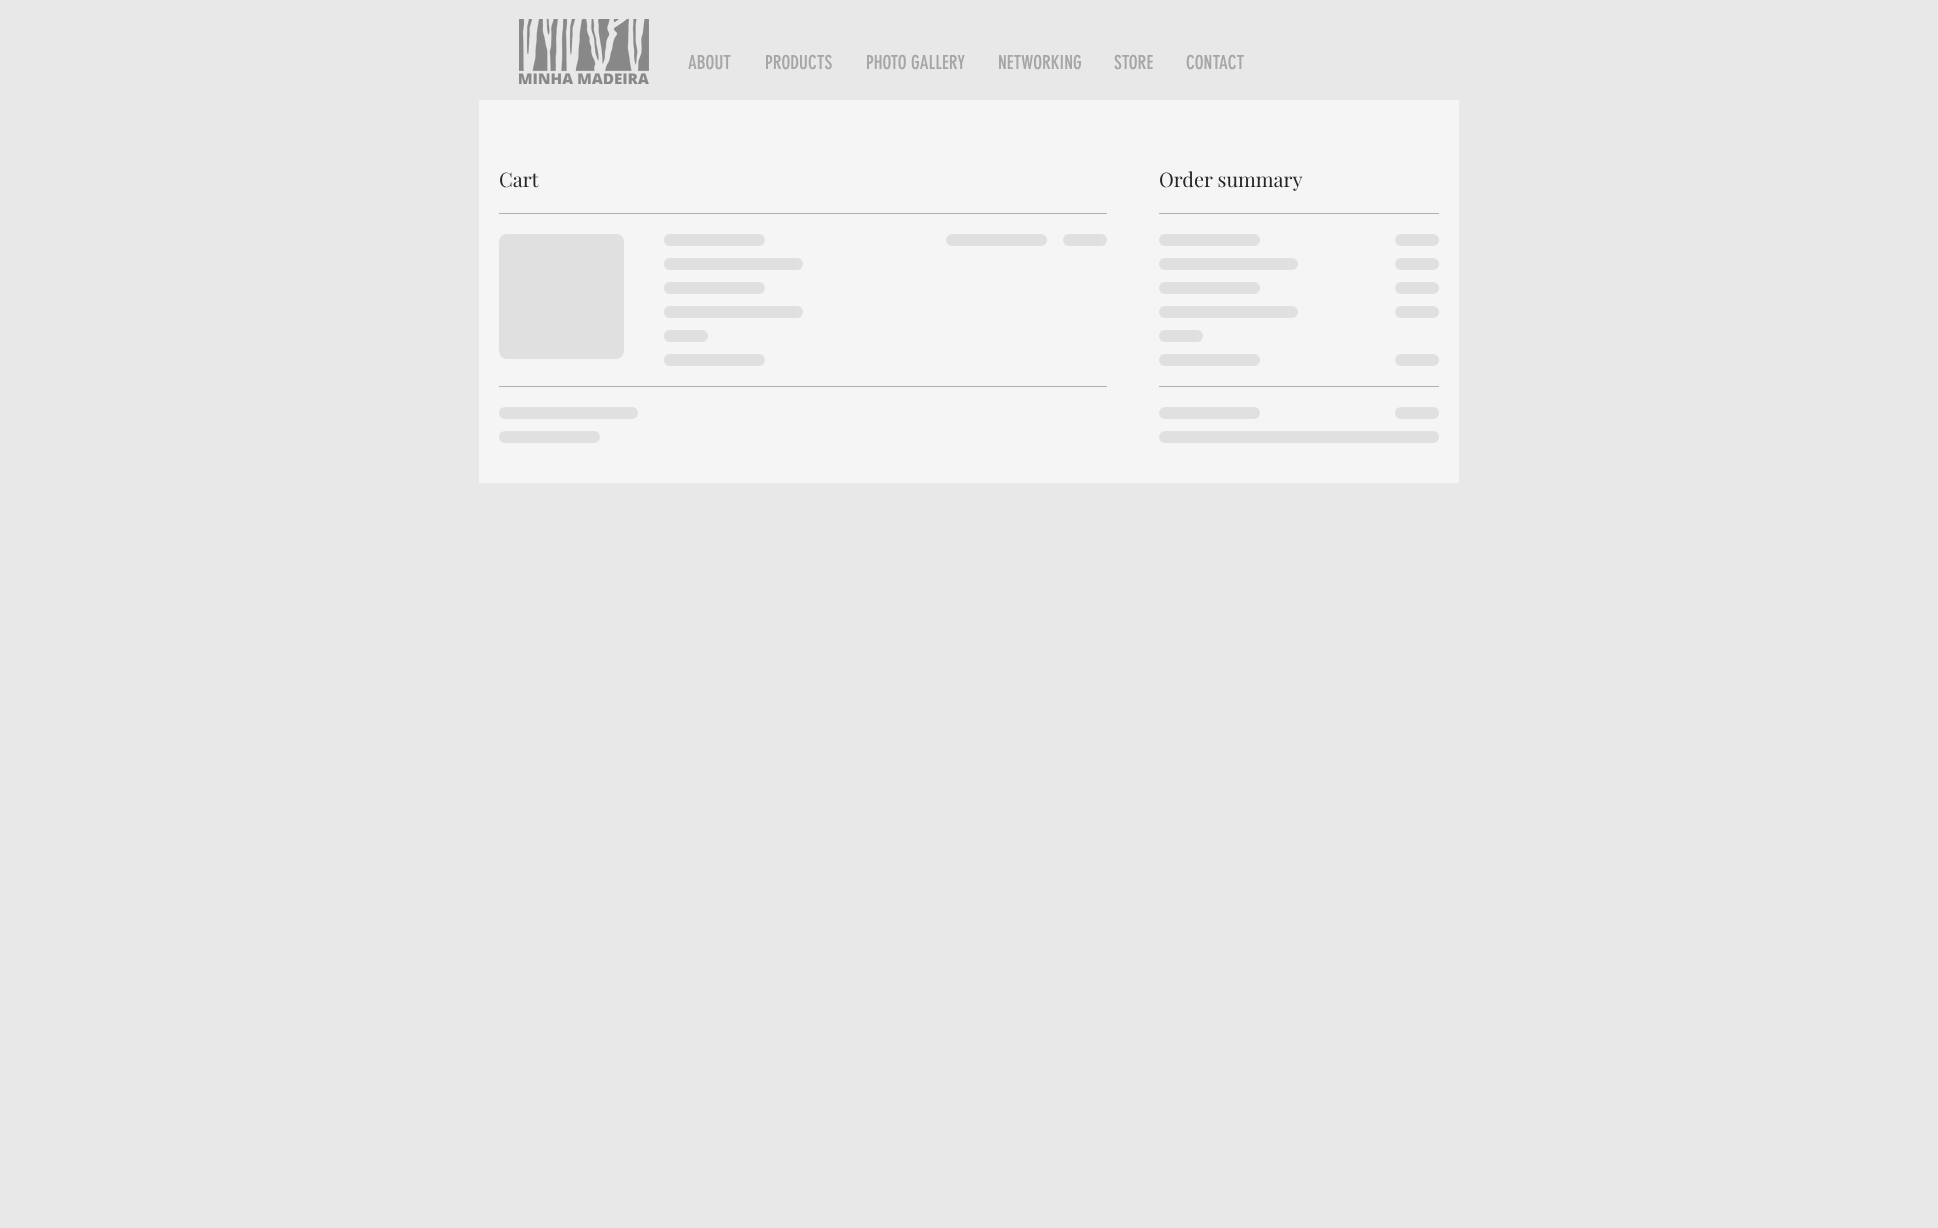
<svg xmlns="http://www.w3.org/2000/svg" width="1938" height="1228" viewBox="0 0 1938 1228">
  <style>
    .t1 { font: 19px 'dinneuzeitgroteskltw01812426'; fill: #a6a6a6; }
    .t2 { font: 20px Playfair Display; fill: #262626; }
  </style>
  <defs>
    <linearGradient id="g1" gradientUnits="userSpaceOnUse" x1="499" y1="297" x2="999" y2="297"><stop offset="0.25" stop-color="#e0e0e0"/><stop offset="0.37" stop-color="#ccc"/><stop offset="0.63" stop-color="#e0e0e0"/></linearGradient>
    <linearGradient id="g2" gradientUnits="userSpaceOnUse" x1="664" y1="240" x2="1068" y2="240"><stop offset="0.25" stop-color="#e0e0e0"/><stop offset="0.37" stop-color="#ccc"/><stop offset="0.63" stop-color="#e0e0e0"/></linearGradient>
    <linearGradient id="g3" gradientUnits="userSpaceOnUse" x1="664" y1="264" x2="1220" y2="264"><stop offset="0.25" stop-color="#e0e0e0"/><stop offset="0.37" stop-color="#ccc"/><stop offset="0.63" stop-color="#e0e0e0"/></linearGradient>
    <linearGradient id="g4" gradientUnits="userSpaceOnUse" x1="664" y1="288" x2="1068" y2="288"><stop offset="0.25" stop-color="#e0e0e0"/><stop offset="0.37" stop-color="#ccc"/><stop offset="0.63" stop-color="#e0e0e0"/></linearGradient>
    <linearGradient id="g5" gradientUnits="userSpaceOnUse" x1="664" y1="312" x2="1220" y2="312"><stop offset="0.25" stop-color="#e0e0e0"/><stop offset="0.37" stop-color="#ccc"/><stop offset="0.63" stop-color="#e0e0e0"/></linearGradient>
    <linearGradient id="g6" gradientUnits="userSpaceOnUse" x1="664" y1="336" x2="840" y2="336"><stop offset="0.25" stop-color="#e0e0e0"/><stop offset="0.37" stop-color="#ccc"/><stop offset="0.63" stop-color="#e0e0e0"/></linearGradient>
    <linearGradient id="g7" gradientUnits="userSpaceOnUse" x1="664" y1="360" x2="1068" y2="360"><stop offset="0.25" stop-color="#e0e0e0"/><stop offset="0.37" stop-color="#ccc"/><stop offset="0.63" stop-color="#e0e0e0"/></linearGradient>
    <linearGradient id="g8" gradientUnits="userSpaceOnUse" x1="946" y1="240" x2="1350" y2="240"><stop offset="0.25" stop-color="#e0e0e0"/><stop offset="0.37" stop-color="#ccc"/><stop offset="0.63" stop-color="#e0e0e0"/></linearGradient>
    <linearGradient id="g9" gradientUnits="userSpaceOnUse" x1="1063" y1="240" x2="1239" y2="240"><stop offset="0.25" stop-color="#e0e0e0"/><stop offset="0.37" stop-color="#ccc"/><stop offset="0.63" stop-color="#e0e0e0"/></linearGradient>
    <linearGradient id="g10" gradientUnits="userSpaceOnUse" x1="499" y1="413" x2="1055" y2="413"><stop offset="0.25" stop-color="#e0e0e0"/><stop offset="0.37" stop-color="#ccc"/><stop offset="0.63" stop-color="#e0e0e0"/></linearGradient>
    <linearGradient id="g11" gradientUnits="userSpaceOnUse" x1="499" y1="437" x2="903" y2="437"><stop offset="0.25" stop-color="#e0e0e0"/><stop offset="0.37" stop-color="#ccc"/><stop offset="0.63" stop-color="#e0e0e0"/></linearGradient>
    <linearGradient id="g12" gradientUnits="userSpaceOnUse" x1="1159" y1="240" x2="1563" y2="240"><stop offset="0.25" stop-color="#e0e0e0"/><stop offset="0.37" stop-color="#ccc"/><stop offset="0.63" stop-color="#e0e0e0"/></linearGradient>
    <linearGradient id="g13" gradientUnits="userSpaceOnUse" x1="1395" y1="240" x2="1571" y2="240"><stop offset="0.25" stop-color="#e0e0e0"/><stop offset="0.37" stop-color="#ccc"/><stop offset="0.63" stop-color="#e0e0e0"/></linearGradient>
    <linearGradient id="g14" gradientUnits="userSpaceOnUse" x1="1159" y1="264" x2="1715" y2="264"><stop offset="0.25" stop-color="#e0e0e0"/><stop offset="0.37" stop-color="#ccc"/><stop offset="0.63" stop-color="#e0e0e0"/></linearGradient>
    <linearGradient id="g15" gradientUnits="userSpaceOnUse" x1="1395" y1="264" x2="1571" y2="264"><stop offset="0.25" stop-color="#e0e0e0"/><stop offset="0.37" stop-color="#ccc"/><stop offset="0.63" stop-color="#e0e0e0"/></linearGradient>
    <linearGradient id="g16" gradientUnits="userSpaceOnUse" x1="1159" y1="288" x2="1563" y2="288"><stop offset="0.25" stop-color="#e0e0e0"/><stop offset="0.37" stop-color="#ccc"/><stop offset="0.63" stop-color="#e0e0e0"/></linearGradient>
    <linearGradient id="g17" gradientUnits="userSpaceOnUse" x1="1395" y1="288" x2="1571" y2="288"><stop offset="0.25" stop-color="#e0e0e0"/><stop offset="0.37" stop-color="#ccc"/><stop offset="0.63" stop-color="#e0e0e0"/></linearGradient>
    <linearGradient id="g18" gradientUnits="userSpaceOnUse" x1="1159" y1="312" x2="1715" y2="312"><stop offset="0.25" stop-color="#e0e0e0"/><stop offset="0.37" stop-color="#ccc"/><stop offset="0.63" stop-color="#e0e0e0"/></linearGradient>
    <linearGradient id="g19" gradientUnits="userSpaceOnUse" x1="1395" y1="312" x2="1571" y2="312"><stop offset="0.25" stop-color="#e0e0e0"/><stop offset="0.37" stop-color="#ccc"/><stop offset="0.63" stop-color="#e0e0e0"/></linearGradient>
    <linearGradient id="g20" gradientUnits="userSpaceOnUse" x1="1159" y1="336" x2="1335" y2="336"><stop offset="0.25" stop-color="#e0e0e0"/><stop offset="0.37" stop-color="#ccc"/><stop offset="0.63" stop-color="#e0e0e0"/></linearGradient>
    <linearGradient id="g21" gradientUnits="userSpaceOnUse" x1="1159" y1="360" x2="1563" y2="360"><stop offset="0.25" stop-color="#e0e0e0"/><stop offset="0.37" stop-color="#ccc"/><stop offset="0.63" stop-color="#e0e0e0"/></linearGradient>
    <linearGradient id="g22" gradientUnits="userSpaceOnUse" x1="1395" y1="360" x2="1571" y2="360"><stop offset="0.25" stop-color="#e0e0e0"/><stop offset="0.37" stop-color="#ccc"/><stop offset="0.63" stop-color="#e0e0e0"/></linearGradient>
    <linearGradient id="g23" gradientUnits="userSpaceOnUse" x1="1159" y1="413" x2="1563" y2="413"><stop offset="0.25" stop-color="#e0e0e0"/><stop offset="0.37" stop-color="#ccc"/><stop offset="0.63" stop-color="#e0e0e0"/></linearGradient>
    <linearGradient id="g24" gradientUnits="userSpaceOnUse" x1="1395" y1="413" x2="1571" y2="413"><stop offset="0.25" stop-color="#e0e0e0"/><stop offset="0.37" stop-color="#ccc"/><stop offset="0.63" stop-color="#e0e0e0"/></linearGradient>
    <linearGradient id="g25" gradientUnits="userSpaceOnUse" x1="1159" y1="437" x2="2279" y2="437"><stop offset="0.25" stop-color="#e0e0e0"/><stop offset="0.37" stop-color="#ccc"/><stop offset="0.63" stop-color="#e0e0e0"/></linearGradient>
  </defs>
  <rect width="100%" height="100%" fill="#e8e8e8"/>
  <image x="519" y="19" width="130" height="65" href="images/1.png"/>
  <text x="688" y="69" class="t1">ABOUT</text>
  <text x="765" y="69" class="t1">PRODUCTS</text>
  <text x="866" y="69" class="t1">PHOTO GALLERY</text>
  <text x="998" y="69" class="t1">NETWORKING</text>
  <text x="1114" y="69" class="t1">STORE</text>
  <text x="1186" y="69" class="t1">CONTACT</text>
  <rect x="479" y="100" width="980" height="383" fill="#f5f5f5"/>
  <rect x="499" y="213" width="608" height="1" fill="#b1b1b1"/>
  <text x="499" y="187" class="t2">Cart</text>
  <rect x="499" y="234" width="125" height="125" rx="8" fill="url(#g1)"/>
  <rect x="664" y="234" width="101" height="12" rx="6" fill="url(#g2)"/>
  <rect x="664" y="258" width="139" height="12" rx="6" fill="url(#g3)"/>
  <rect x="664" y="282" width="101" height="12" rx="6" fill="url(#g4)"/>
  <rect x="664" y="306" width="139" height="12" rx="6" fill="url(#g5)"/>
  <rect x="664" y="330" width="44" height="12" rx="6" fill="url(#g6)"/>
  <rect x="664" y="354" width="101" height="12" rx="6" fill="url(#g7)"/>
  <rect x="946" y="234" width="101" height="12" rx="6" fill="url(#g8)"/>
  <rect x="1063" y="234" width="44" height="12" rx="6" fill="url(#g9)"/>
  <rect x="499" y="386" width="608" height="1" fill="#b1b1b1"/>
  <rect x="499" y="407" width="139" height="12" rx="6" fill="url(#g10)"/>
  <rect x="499" y="431" width="101" height="12" rx="6" fill="url(#g11)"/>
  <rect x="1159" y="213" width="280" height="1" fill="#b1b1b1"/>
  <text x="1159" y="187" class="t2">Order summary</text>
  <rect x="1159" y="234" width="101" height="12" rx="6" fill="url(#g12)"/>
  <rect x="1395" y="234" width="44" height="12" rx="6" fill="url(#g13)"/>
  <rect x="1159" y="258" width="139" height="12" rx="6" fill="url(#g14)"/>
  <rect x="1395" y="258" width="44" height="12" rx="6" fill="url(#g15)"/>
  <rect x="1159" y="282" width="101" height="12" rx="6" fill="url(#g16)"/>
  <rect x="1395" y="282" width="44" height="12" rx="6" fill="url(#g17)"/>
  <rect x="1159" y="306" width="139" height="12" rx="6" fill="url(#g18)"/>
  <rect x="1395" y="306" width="44" height="12" rx="6" fill="url(#g19)"/>
  <rect x="1159" y="330" width="44" height="12" rx="6" fill="url(#g20)"/>
  <rect x="1159" y="354" width="101" height="12" rx="6" fill="url(#g21)"/>
  <rect x="1395" y="354" width="44" height="12" rx="6" fill="url(#g22)"/>
  <rect x="1159" y="386" width="280" height="1" fill="#b1b1b1"/>
  <rect x="1159" y="407" width="101" height="12" rx="6" fill="url(#g23)"/>
  <rect x="1395" y="407" width="44" height="12" rx="6" fill="url(#g24)"/>
  <rect x="1159" y="431" width="280" height="12" rx="6" fill="url(#g25)"/>
</svg>
